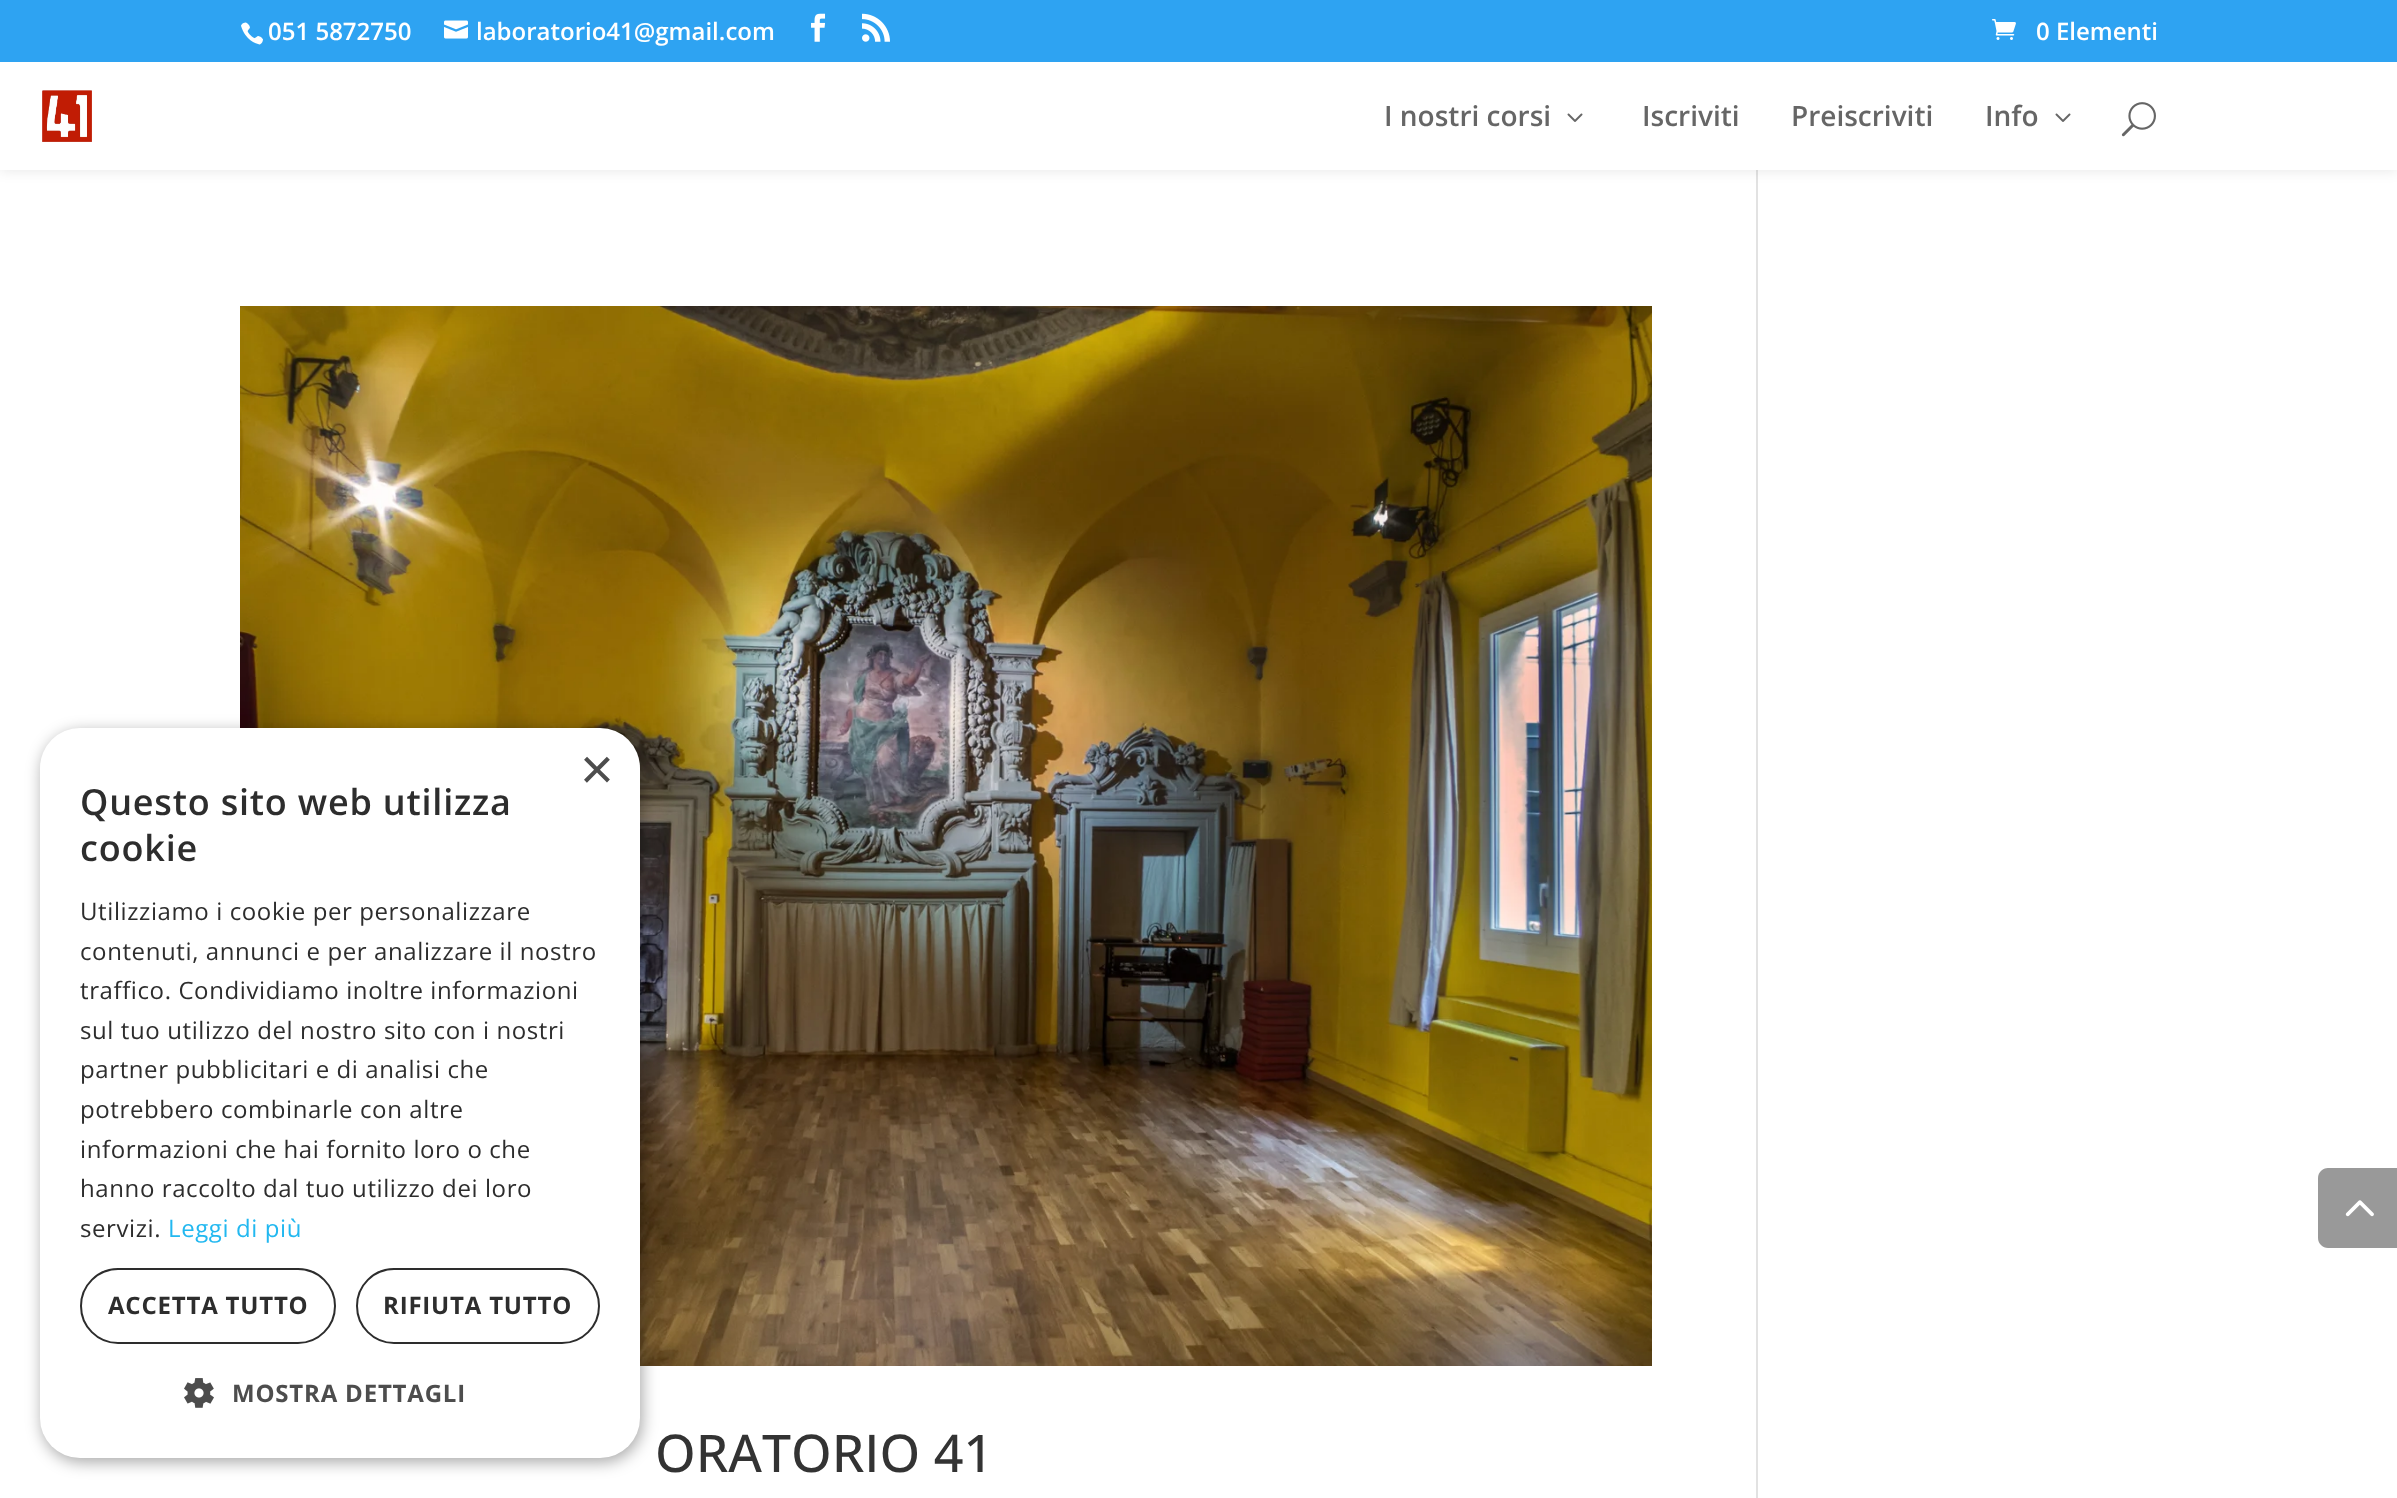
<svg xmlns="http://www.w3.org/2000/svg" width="2397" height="1498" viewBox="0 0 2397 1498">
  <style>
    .t1 { font: 600 24px Open Sans; fill: #fff; }
    .t2 { font: 600 28px Open Sans; fill: #666; }
    .t3 { font: 500 52px Open Sans; fill: #333; }
    .t4 { font: 58px Liberation Sans; fill: #4d4d4d; }
    .t5 { font: 600 36px Open Sans; letter-spacing: 0.8px; fill: #2d2d2d; }
    .t6 { font: 24px Open Sans; letter-spacing: 0.6px; fill: #2d2d2d; }
    .t7 { font: 24px Open Sans; letter-spacing: 0.6px; fill: #22b8f0; }
    .t8 { font: bold 24px Open Sans; letter-spacing: 0.8px; fill: #2d2d2d; }
    .t9 { font: bold 24px Open Sans; letter-spacing: 0.8px; fill: #4d4d4d; }
  </style>
  <rect width="100%" height="100%" fill="#fff"/>
  <rect x="1756" y="170" width="2" height="1328" fill="#e2e2e2"/>
  <rect x="0" y="62" width="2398" height="108" fill="#0000001a" filter="blur(7px)"/>
  <rect x="0" y="0" width="2397" height="62" fill="#2ea3f2"/>
  <image x="241" y="22" width="22" height="23" href="images/1.png"/>
  <text x="268" y="40" class="t1">051 5872750</text>
  <image x="444" y="20" width="24" height="19" href="images/2.png"/>
  <text x="476" y="40" class="t1">laboratorio41@gmail.com</text>
  <image x="811" y="13" width="15" height="29" href="images/3.png"/>
  <image x="862" y="13" width="28" height="29" href="images/4.png"/>
  <image x="1992" y="19" width="24" height="21" href="images/5.png"/>
  <text x="2036" y="40" class="t1">0 Elementi</text>
  <rect x="0" y="62" width="2397" height="108" fill="#fff"/>
  <image x="42" y="90" width="50" height="52" href="images/6.png"/>
  <text x="1384" y="126" class="t2">I nostri corsi</text>
  <image x="1567" y="113" width="16" height="9" href="images/7.png"/>
  <text x="1642" y="126" class="t2">Iscriviti</text>
  <text x="1791" y="126" class="t2">Preiscriviti</text>
  <text x="1985" y="126" class="t2">Info</text>
  <image x="2055" y="113" width="16" height="9" href="images/7.png"/>
  <image x="2121" y="102" width="35" height="35" href="images/8.png"/>
  <path d="M2328 1168H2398V1248H2328C2322.5 1248 2318 1243.5 2318 1238V1178C2318 1172.5 2322.5 1168 2328 1168Z" fill="#999"/>
  <image x="2345" y="1200" width="29" height="17" href="images/9.png"/>
  <image x="240" y="306" width="1412" height="1060" href="images/10.png"/>
  <text x="655" y="1472" class="t3">ORATORIO 41</text>
  <rect x="42" y="732" width="600" height="730" rx="40" fill="#00000059" filter="blur(8px)"/>
  <rect x="40" y="728" width="600" height="730" rx="40" fill="#fff"/>
  <text x="580" y="789" class="t4">×</text>
  <text x="80" y="815" class="t5">Questo sito web utilizza</text>
  <text x="80" y="861" class="t5">cookie</text>
  <text x="80" y="920" class="t6">Utilizziamo i cookie per personalizzare</text>
  <text x="80" y="960" class="t6">contenuti, annunci e per analizzare il nostro</text>
  <text x="80" y="999" class="t6">traffico. Condividiamo inoltre informazioni</text>
  <text x="80" y="1039" class="t6">sul tuo utilizzo del nostro sito con i nostri</text>
  <text x="80" y="1078" class="t6">partner pubblicitari e di analisi che</text>
  <text x="80" y="1118" class="t6">potrebbero combinarle con altre</text>
  <text x="80" y="1158" class="t6">informazioni che hai fornito loro o che</text>
  <text x="80" y="1197" class="t6">hanno raccolto dal tuo utilizzo dei loro</text>
  <text x="80" y="1237" class="t6">servizi.</text>
  <text x="168" y="1237" class="t7">Leggi di più</text>
  <rect x="81" y="1269" width="254" height="74" rx="37" fill="none" stroke="#2d2d2d" stroke-width="2"/>
  <text x="108" y="1314" class="t8">ACCETTA TUTTO</text>
  <rect x="357" y="1269" width="242" height="74" rx="37" fill="none" stroke="#2d2d2d" stroke-width="2"/>
  <text x="383" y="1314" class="t8">RIFIUTA TUTTO</text>
  <image x="184" y="1378" width="30" height="30" href="images/11.png"/>
  <text x="232" y="1402" class="t9">MOSTRA DETTAGLI</text>
</svg>
